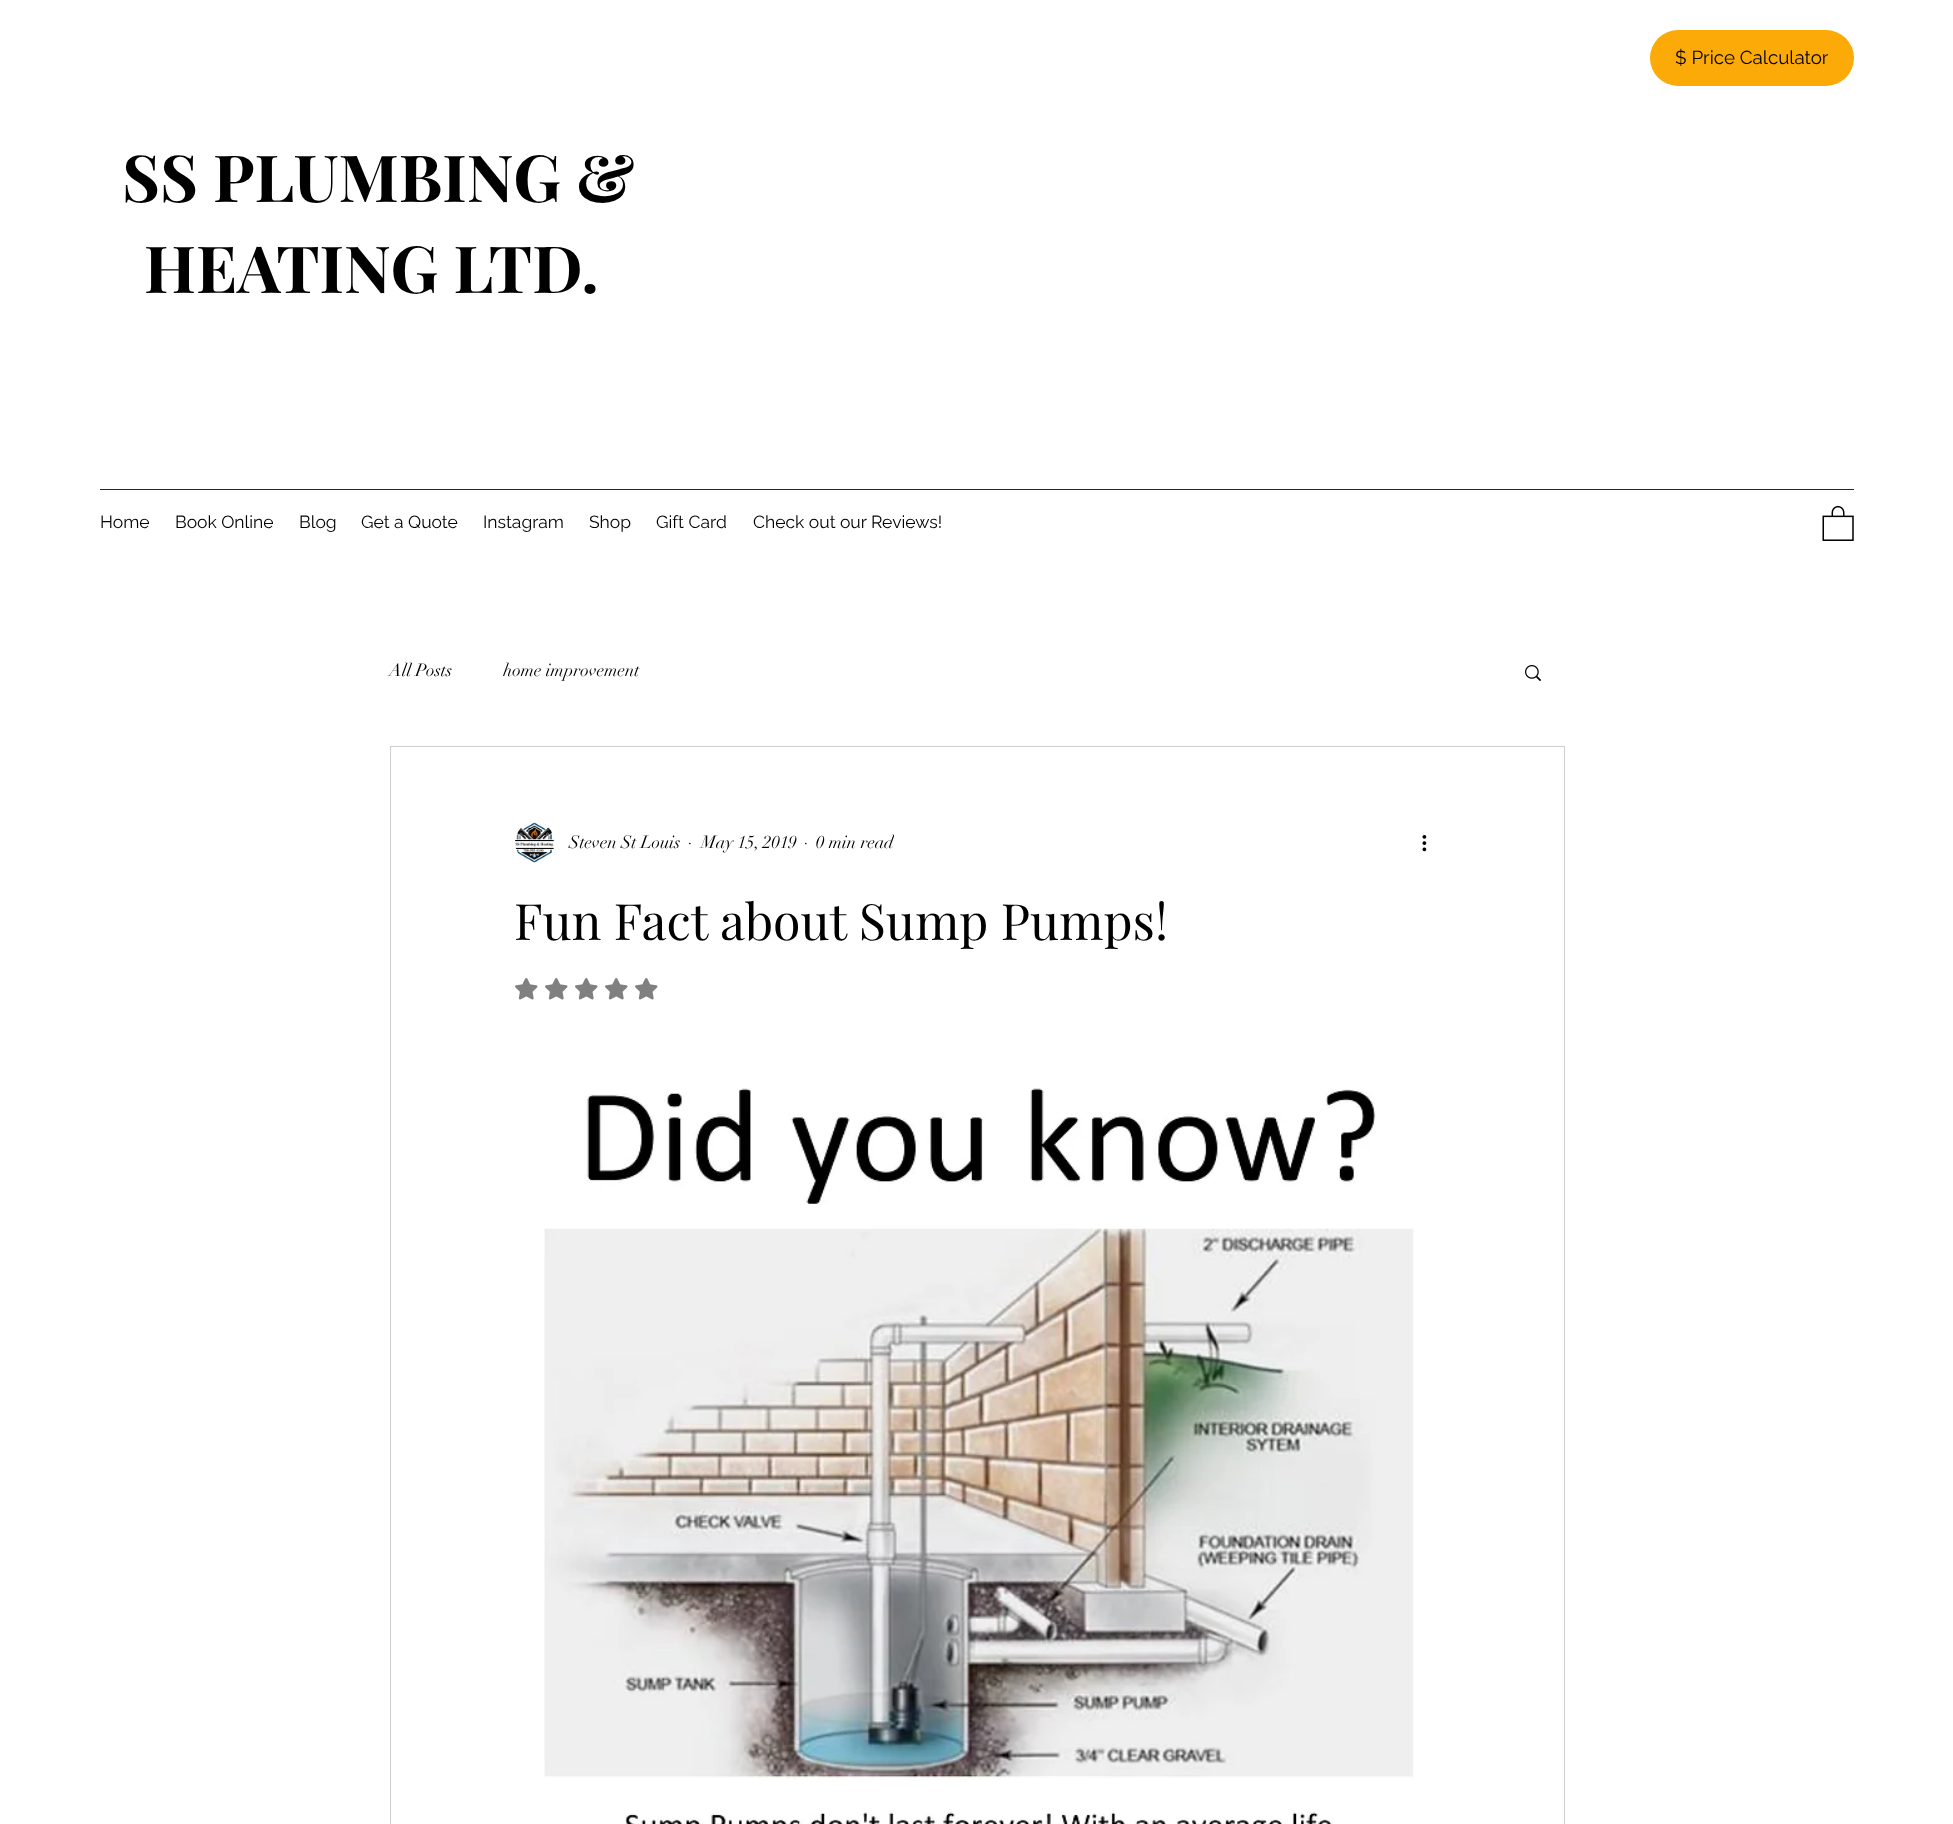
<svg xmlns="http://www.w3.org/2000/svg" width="1953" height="1824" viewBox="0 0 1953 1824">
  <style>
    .t1 { font: 18.75px Raleway; fill: #000; }
    .t2 { font: bold 65px Playfair Display; fill: #000; }
    .t3 { font: 17.5px Raleway; fill: #000; }
    .t4 { font: 17.5px didot; fill: #000; }
    .t5 { font: 50px Playfair Display; fill: #000; }
  </style>
  <defs>
    <clipPath id="clip1"><rect x="796" y="829" width="98" height="26"/></clipPath>
  </defs>
  <rect width="100%" height="100%" fill="#fff"/>
  <rect x="1650" y="30" width="204" height="56" rx="28" fill="#fbaa07"/>
  <text x="1675" y="64" class="t1">$ Price Calculator</text>
  <text x="122" y="202" class="t2">SS PLUMBING &amp;</text>
  <text x="144" y="293" class="t2">HEATING LTD.</text>
  <rect x="100" y="489" width="1754" height="1" fill="#262626"/>
  <text x="100" y="528" class="t3">Home</text>
  <text x="175" y="528" class="t3">Book Online</text>
  <text x="299" y="528" class="t3">Blog</text>
  <text x="361" y="528" class="t3">Get a Quote</text>
  <text x="483" y="528" class="t3">Instagram</text>
  <text x="589" y="528" class="t3">Shop</text>
  <text x="656" y="528" class="t3">Gift Card</text>
  <text x="753" y="528" class="t3">Check out our Reviews!</text>
  <image x="1822" y="505" width="32" height="36" href="images/1.png"/>
  <text x="389" y="676" class="t4">All Posts</text>
  <text x="503" y="676" class="t4">home improvement</text>
  <image x="1525" y="665" width="16" height="16" href="images/2.png"/>
  <rect x="390.5" y="746.5" width="1174" height="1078" fill="none" stroke="#cfcfcf"/>
  <image x="515" y="822" width="40" height="41" href="images/3.png"/>
  <text x="569" y="848" class="t4">Steven St Louis</text>
  <text x="688" y="848" class="t4">·</text>
  <text x="701" y="848" class="t4">May 15, 2019</text>
  <text x="804" y="848" class="t4">·</text>
  <g clip-path="url(#clip1)">
    <text x="816" y="848" class="t4">0 min read</text>
  </g>
  <image x="1422" y="835" width="5" height="17" href="images/4.png"/>
  <text x="514" y="940" class="t5">Fun Fact about Sump Pumps!</text>
  <image x="515" y="978" width="23" height="22" href="images/5.png"/>
  <image x="545" y="978" width="23" height="22" href="images/5.png"/>
  <image x="575" y="978" width="23" height="22" href="images/5.png"/>
  <image x="605" y="978" width="23" height="22" href="images/5.png"/>
  <image x="635" y="978" width="23" height="22" href="images/5.png"/>
  <image x="544" y="1088" width="870" height="736" href="images/6.png"/>
</svg>
